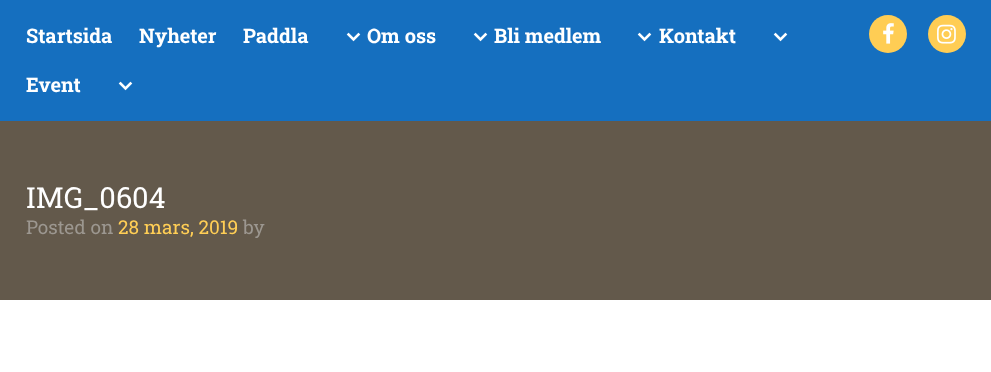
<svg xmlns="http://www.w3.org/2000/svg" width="991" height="372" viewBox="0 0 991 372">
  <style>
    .t1 { font: bold 20px Roboto Slab; fill: #fff; }
    .t2 { font: 29px Roboto Slab; fill: #fff; }
    .t3 { font: 19px Roboto Slab; fill: #9c9790; }
    .t4 { font: 19px Roboto Slab; fill: #ffce55; }
  </style>
  <rect width="100%" height="100%" fill="#fff"/>
  <rect x="0" y="0" width="991" height="121" fill="#156fbf"/>
  <text x="26" y="43" class="t1">Startsida</text>
  <text x="139" y="43" class="t1">Nyheter</text>
  <image x="346" y="32" width="15" height="10" href="images/1.png"/>
  <text x="243" y="43" class="t1">Paddla</text>
  <image x="473" y="32" width="15" height="10" href="images/1.png"/>
  <text x="367" y="43" class="t1">Om oss</text>
  <image x="637" y="32" width="15" height="10" href="images/1.png"/>
  <text x="494" y="43" class="t1">Bli medlem</text>
  <image x="773" y="32" width="15" height="10" href="images/1.png"/>
  <text x="659" y="43" class="t1">Kontakt</text>
  <image x="118" y="81" width="15" height="10" href="images/1.png"/>
  <text x="26" y="92" class="t1">Event</text>
  <circle cx="888" cy="34" r="19" fill="#ffcd54"/>
  <image x="883" y="23" width="11" height="21" href="images/2.png"/>
  <circle cx="947" cy="34" r="19" fill="#ffcd54"/>
  <image x="937" y="24" width="19" height="20" href="images/3.png"/>
  <rect x="0" y="121" width="991" height="179" fill="#63594b"/>
  <text x="26" y="208" class="t2">IMG_0604</text>
  <text x="26" y="234" class="t3">Posted on</text>
  <text x="118" y="234" class="t4">28 mars, 2019</text>
  <text x="243" y="234" class="t3">by</text>
</svg>
